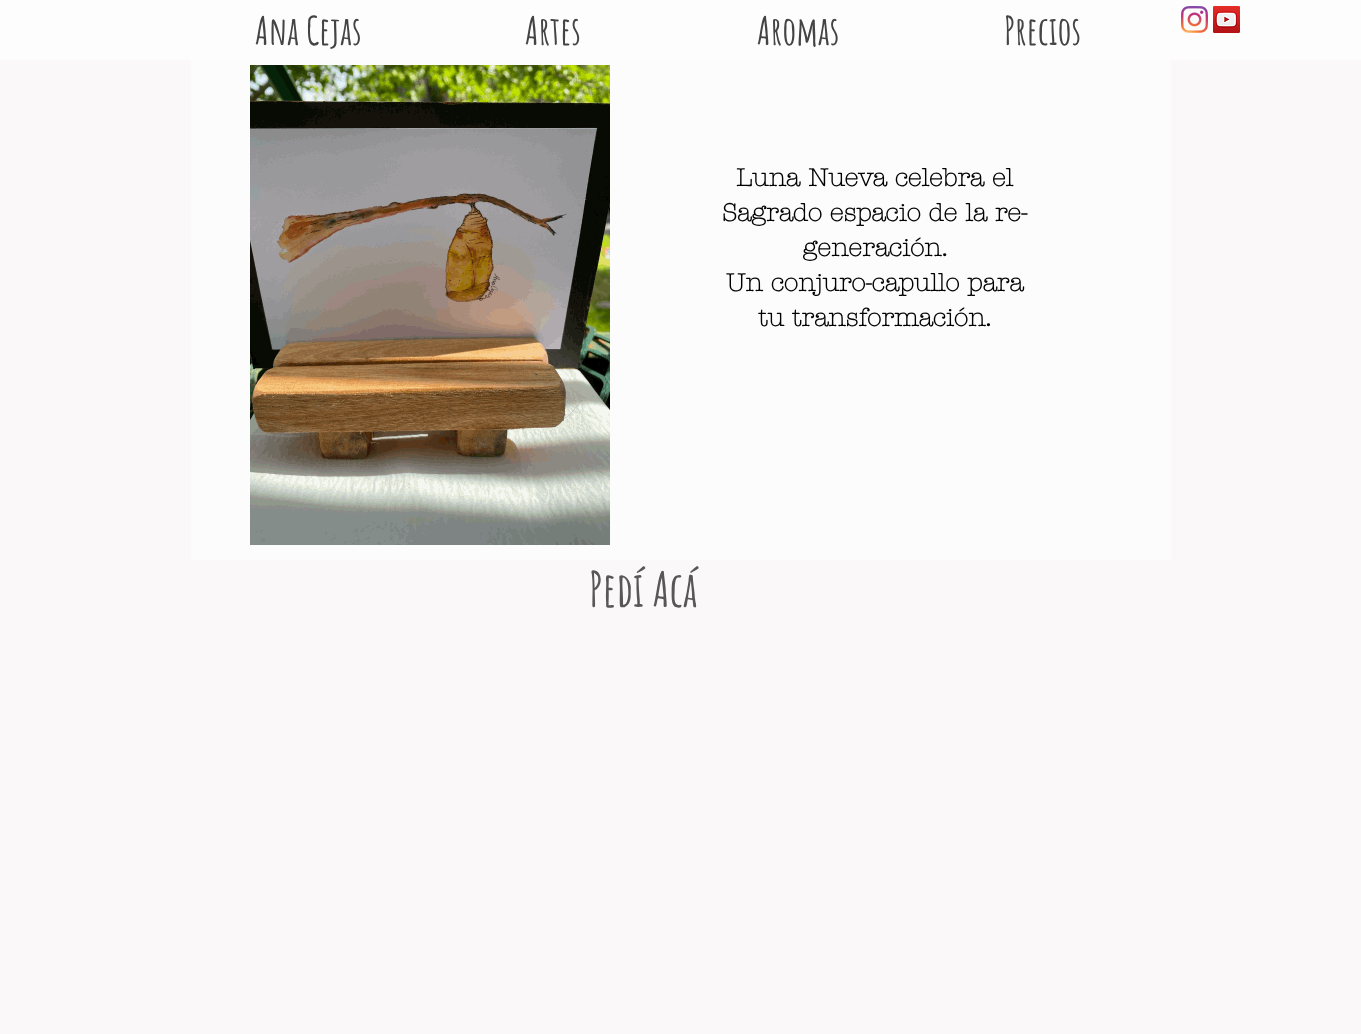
<svg xmlns="http://www.w3.org/2000/svg" width="1361" height="1034" viewBox="0 0 1361 1034">
  <style>
    .t1 { font: bold 39px Amatic SC; fill: #454445; }
    .t2 { font: bold 25px 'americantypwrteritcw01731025'; fill: #000; }
    .t3 { font: bold 48px Amatic SC; fill: #575757; }
  </style>
  <rect width="100%" height="100%" fill="#fbf8fa"/>
  <rect x="0" y="0" width="1361" height="60" fill="#fefdfe"/>
  <text x="255" y="45" class="t1">Ana Cejas</text>
  <text x="525" y="45" class="t1">Artes</text>
  <text x="757" y="45" class="t1">Aromas</text>
  <text x="1004" y="45" class="t1">Precios</text>
  <image x="1181" y="6" width="27" height="27" href="images/1.png"/>
  <image x="1213" y="6" width="27" height="27" href="images/2.png"/>
  <rect x="191" y="60" width="980" height="500" fill="#fdfcfc"/>
  <image x="250" y="65" width="360" height="480" href="images/3.png"/>
  <text x="736" y="186" class="t2">Luna Nueva celebra el</text>
  <text x="722" y="221" class="t2">Sagrado espacio de la re-</text>
  <text x="802" y="256" class="t2">generación.</text>
  <text x="726" y="291" class="t2">Un conjuro-capullo para</text>
  <text x="758" y="326" class="t2">tu transformación.</text>
  <text x="589" y="607" class="t3">Pedí Acá</text>
</svg>
